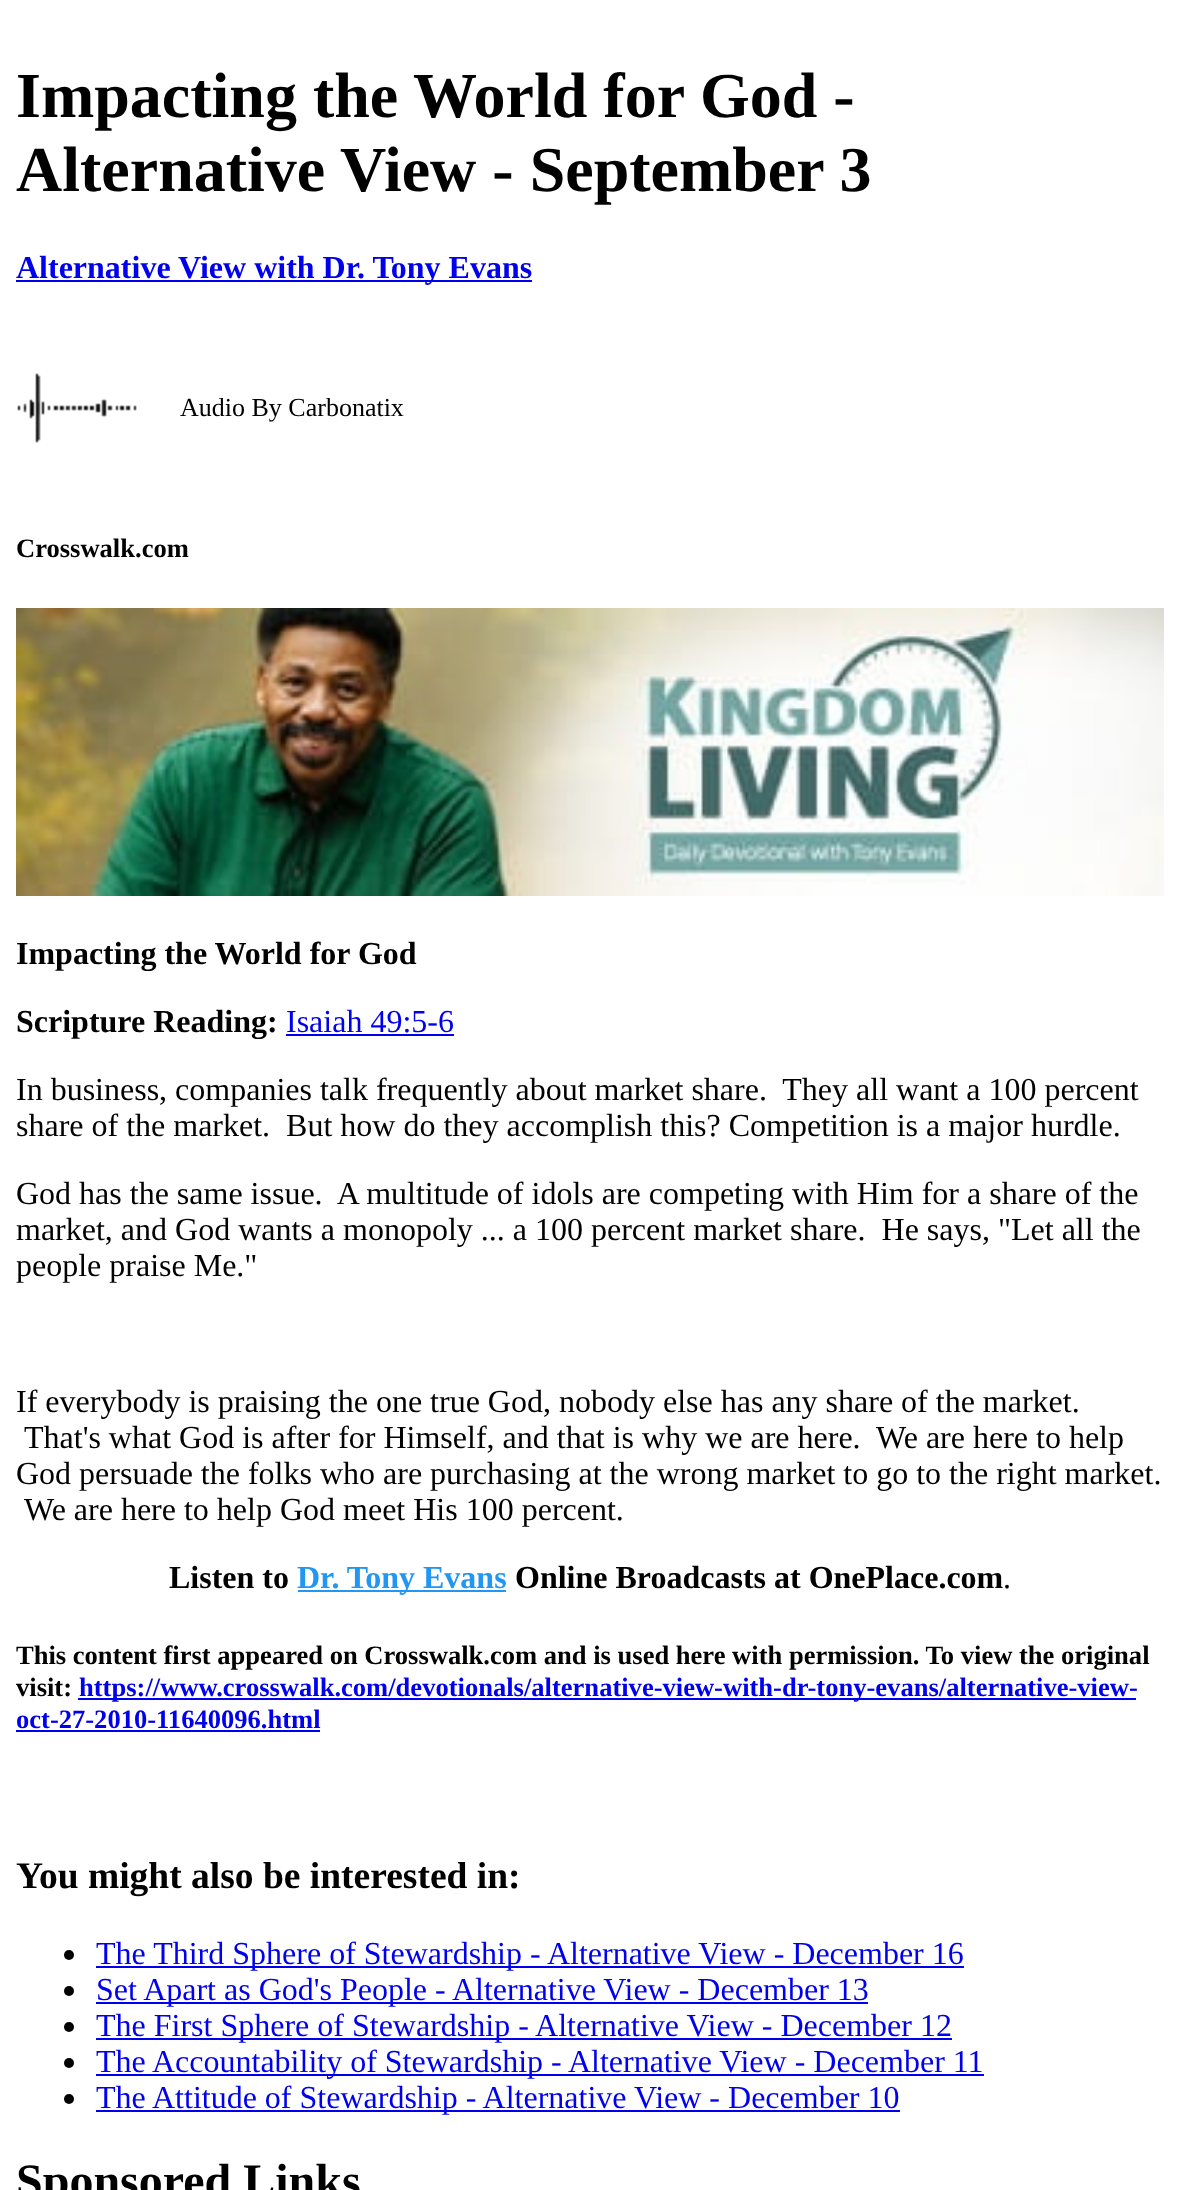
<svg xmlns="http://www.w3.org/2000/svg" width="1180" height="2190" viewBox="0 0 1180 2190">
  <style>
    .t1 { font: bold 64px Liberation Serif; fill: #000; }
    .t2 { font: bold 32px Liberation Serif; fill: #00e; }
    .t3 { font: 26px Liberation Serif; fill: #000; }
    .t4 { font: bold 26.55px Liberation Serif; fill: #000; }
    .t5 { font: bold 32px Liberation Serif; fill: #000; }
    .t6 { font: 32px Liberation Serif; fill: #00e; }
    .t7 { font: 32px Liberation Serif; fill: #000; }
    .t8 { font: bold 32px Liberation Serif; fill: #2196f3; }
    .t9 { font: bold 26.55px Liberation Serif; fill: #00e; }
    .t10 { font: bold 37.5px Liberation Serif; fill: #000; }
    .t11 { font: bold 48px Liberation Serif; fill: #000; }
  </style>
  <rect width="100%" height="100%" fill="#fff"/>
  <text x="16" y="117" class="t1">Impacting the World for God -</text>
  <text x="16" y="191" class="t1">Alternative View - September 3</text>
  <rect x="16" y="280" width="516" height="2" fill="#00e"/>
  <text x="16" y="278" class="t2">Alternative View with Dr. Tony Evans</text>
  <image x="17" y="373" width="120" height="70" href="images/1.png"/>
  <text x="180" y="416" class="t3">Audio By Carbonatix</text>
  <text x="16" y="557" class="t4">Crosswalk.com</text>
  <image x="16" y="608" width="1148" height="288" href="images/2.png"/>
  <text x="16" y="964" class="t5">Impacting the World for God</text>
  <text x="16" y="1032" class="t5">Scripture Reading:</text>
  <text x="286" y="1032" class="t6">Isaiah 49:5-6</text>
  <rect x="286" y="1034" width="168" height="2" fill="#00e"/>
  <text x="16" y="1100" class="t7" xml:space="preserve">In business, companies talk frequently about market share.  They all want a 100 percent</text>
  <text x="16" y="1136" class="t7" xml:space="preserve">share of the market.  But how do they accomplish this? Competition is a major hurdle.</text>
  <text x="16" y="1204" class="t7" xml:space="preserve">God has the same issue.  A multitude of idols are competing with Him for a share of the</text>
  <text x="16" y="1240" class="t7" xml:space="preserve">market, and God wants a monopoly ... a 100 percent market share.  He says, "Let all the</text>
  <text x="16" y="1276" class="t7">people praise Me."</text>
  <text x="16" y="1412" class="t7">If everybody is praising the one true God, nobody else has any share of the market.</text>
  <text x="24" y="1448" class="t7" xml:space="preserve">That's what God is after for Himself, and that is why we are here.  We are here to help</text>
  <text x="16" y="1484" class="t7">God persuade the folks who are purchasing at the wrong market to go to the right market.</text>
  <text x="24" y="1520" class="t7">We are here to help God meet His 100 percent.</text>
  <text x="169" y="1588" class="t5">Listen to</text>
  <rect x="298" y="1590" width="208" height="2" fill="#2196f3"/>
  <text x="297" y="1588" class="t8">Dr. Tony Evans</text>
  <text x="515" y="1588" class="t5">Online Broadcasts at OnePlace.com</text>
  <text x="1003" y="1588" class="t7">.</text>
  <text x="16" y="1664" class="t4">This content first appeared on Crosswalk.com and is used here with permission. To view the original</text>
  <text x="16" y="1696" class="t4">visit:</text>
  <rect x="78" y="1698" width="1058" height="2" fill="#00e"/>
  <text x="79" y="1696" class="t9">https://www.crosswalk.com/devotionals/alternative-view-with-dr-tony-evans/alternative-view-</text>
  <text x="16" y="1728" class="t9">oct-27-2010-11640096.html</text>
  <rect x="16" y="1730" width="304" height="2" fill="#00e"/>
  <text x="16" y="1888" class="t10">You might also be interested in:</text>
  <circle cx="69" cy="1955" r="5" fill="#000"/>
  <rect x="96" y="1966" width="868" height="2" fill="#00e"/>
  <text x="96" y="1964" class="t6">The Third Sphere of Stewardship - Alternative View - December 16</text>
  <circle cx="69" cy="1991" r="5" fill="#000"/>
  <rect x="96" y="2002" width="772" height="2" fill="#00e"/>
  <text x="96" y="2000" class="t6">Set Apart as God's People - Alternative View - December 13</text>
  <circle cx="69" cy="2027" r="5" fill="#000"/>
  <rect x="96" y="2038" width="856" height="2" fill="#00e"/>
  <text x="96" y="2036" class="t6">The First Sphere of Stewardship - Alternative View - December 12</text>
  <circle cx="69" cy="2063" r="5" fill="#000"/>
  <rect x="96" y="2074" width="888" height="2" fill="#00e"/>
  <text x="96" y="2072" class="t6">The Accountability of Stewardship - Alternative View - December 11</text>
  <circle cx="69" cy="2099" r="5" fill="#000"/>
  <rect x="96" y="2110" width="804" height="2" fill="#00e"/>
  <text x="96" y="2108" class="t6">The Attitude of Stewardship - Alternative View - December 10</text>
  <text x="16" y="2197" class="t11">Sponsored Links</text>
</svg>
